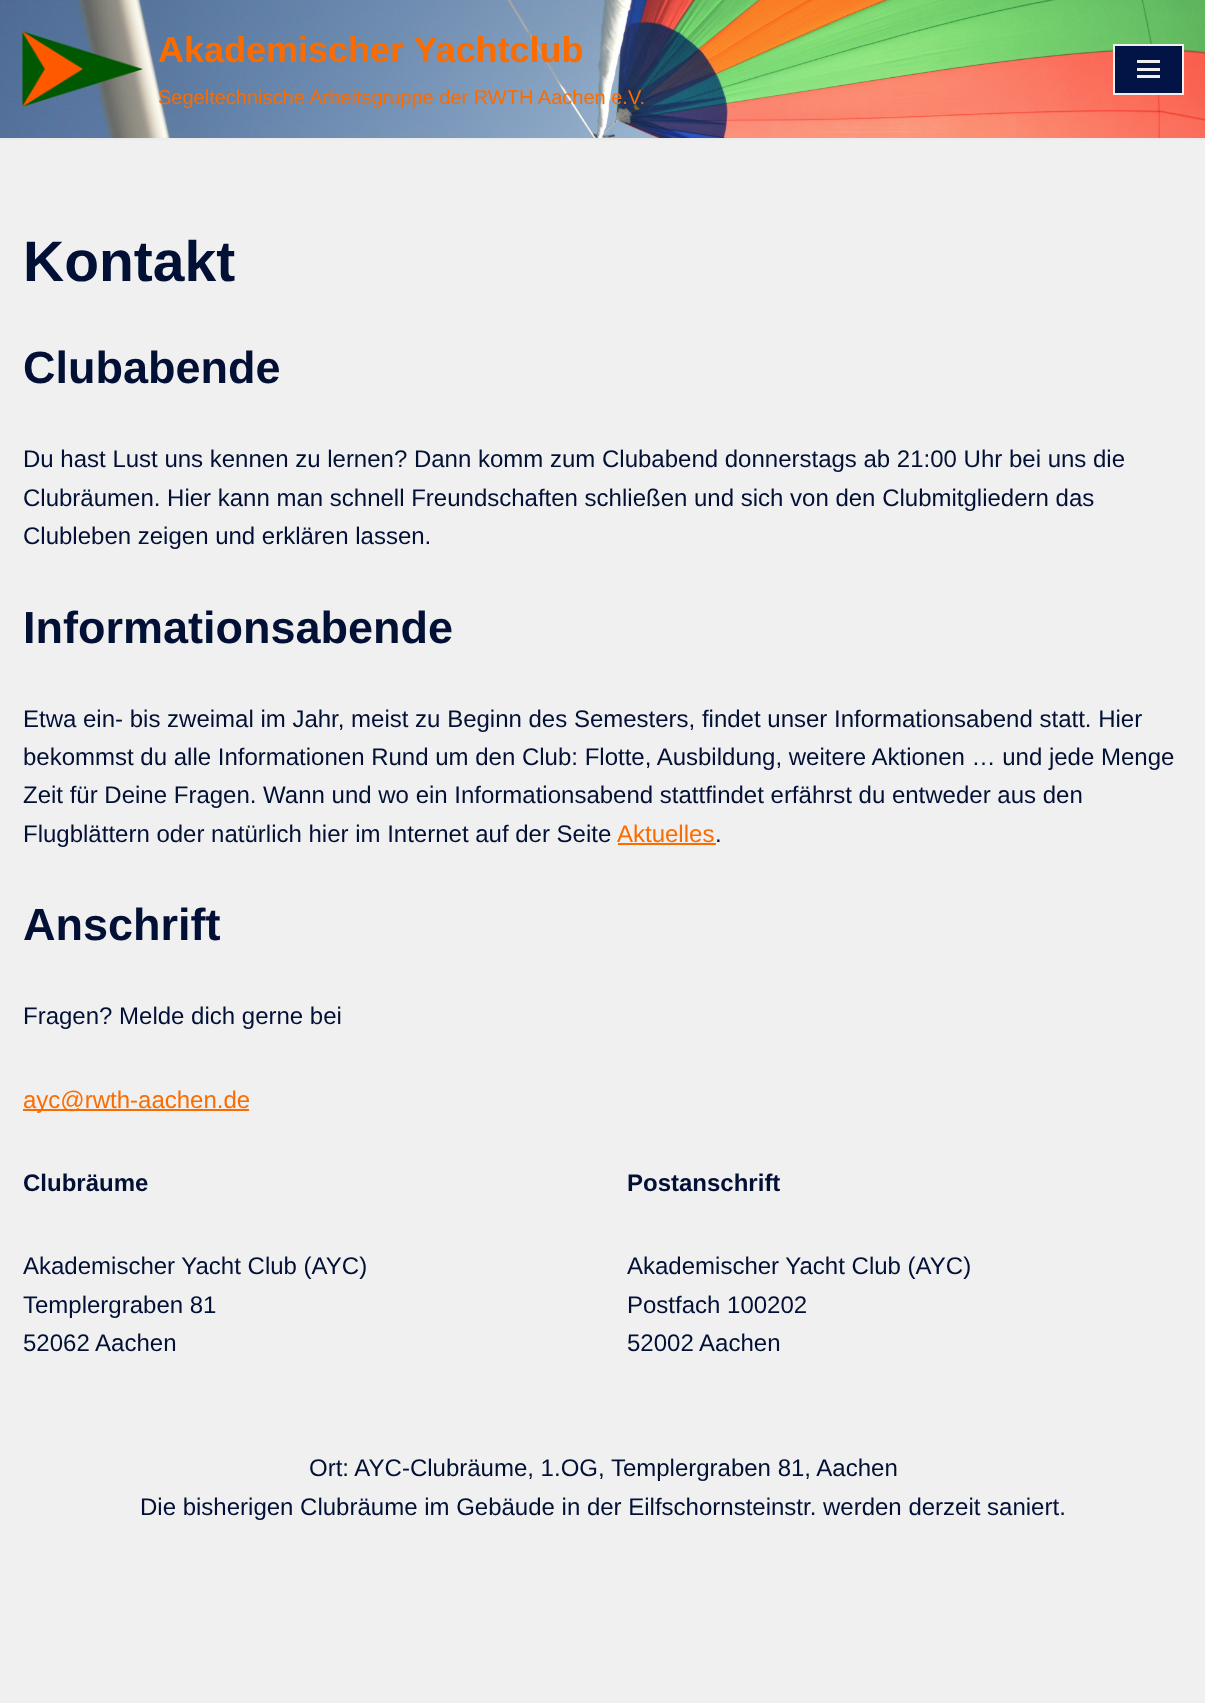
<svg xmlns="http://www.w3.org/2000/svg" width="1205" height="1703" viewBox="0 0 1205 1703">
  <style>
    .t1 { font: bold 36px Liberation Sans; fill: #fb6c00; }
    .t2 { font: 20px Liberation Sans; fill: #fb6c00; }
    .t3 { font: bold 57px Liberation Sans; fill: #021036; }
    .t4 { font: bold 45px Liberation Sans; fill: #021036; }
    .t5 { font: 24px Liberation Sans; fill: #021036; }
    .t6 { font: 24px Liberation Sans; fill: #fb6c00; }
    .t7 { font: bold 24px Liberation Sans; fill: #021036; }
  </style>
  <rect width="100%" height="100%" fill="#f0f0f0"/>
  <rect x="0" y="-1" width="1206" height="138" fill="#0000001a" filter="blur(2px)"/>
  <image x="0" y="0" width="1205" height="138" href="images/1.png"/>
  <image x="22" y="31" width="121" height="76" href="images/2.png"/>
  <text x="158" y="62" class="t1">Akademischer Yachtclub</text>
  <text x="158" y="104" class="t2">Segeltechnische Arbeitsgruppe der RWTH Aachen e.V.</text>
  <rect x="1114" y="45" width="69" height="49" fill="#021446" stroke="#f0f0f0" stroke-width="2"/>
  <rect x="1137" y="60" width="23" height="3" fill="#f0f0f0"/>
  <rect x="1137" y="68" width="23" height="3" fill="#f0f0f0"/>
  <rect x="1137" y="75" width="23" height="3" fill="#f0f0f0"/>
  <text x="23" y="281" class="t3">Kontakt</text>
  <text x="23" y="383" class="t4">Clubabende</text>
  <text x="23" y="467" class="t5">Du hast Lust uns kennen zu lernen? Dann komm zum Clubabend donnerstags ab 21:00 Uhr bei uns die</text>
  <text x="23" y="506" class="t5">Clubräumen. Hier kann man schnell Freundschaften schließen und sich von den Clubmitgliedern das</text>
  <text x="23" y="544" class="t5">Clubleben zeigen und erklären lassen.</text>
  <text x="23" y="643" class="t4">Informationsabende</text>
  <text x="23" y="727" class="t5">Etwa ein- bis zweimal im Jahr, meist zu Beginn des Semesters, findet unser Informationsabend statt. Hier</text>
  <text x="23" y="765" class="t5">bekommst du alle Informationen Rund um den Club: Flotte, Ausbildung, weitere Aktionen … und jede Menge</text>
  <text x="23" y="803" class="t5">Zeit für Deine Fragen. Wann und wo ein Informationsabend stattfindet erfährst du entweder aus den</text>
  <text x="23" y="842" class="t5">Flugblättern oder natürlich hier im Internet auf der Seite</text>
  <text x="617" y="842" class="t6">Aktuelles</text>
  <rect x="618" y="843" width="98" height="2" fill="#fb6c00"/>
  <text x="715" y="842" class="t5">.</text>
  <text x="23" y="940" class="t4">Anschrift</text>
  <text x="23" y="1024" class="t5">Fragen? Melde dich gerne bei</text>
  <rect x="23" y="1109" width="226" height="2" fill="#fb6c00"/>
  <text x="23" y="1108" class="t6">ayc@rwth-aachen.de</text>
  <text x="23" y="1191" class="t7">Clubräume</text>
  <text x="23" y="1274" class="t5">Akademischer Yacht Club (AYC)</text>
  <text x="23" y="1313" class="t5">Templergraben 81</text>
  <text x="23" y="1351" class="t5">52062 Aachen</text>
  <text x="627" y="1191" class="t7">Postanschrift</text>
  <text x="627" y="1274" class="t5">Akademischer Yacht Club (AYC)</text>
  <text x="627" y="1313" class="t5">Postfach 100202</text>
  <text x="627" y="1351" class="t5">52002 Aachen</text>
  <text x="309" y="1476" class="t5">Ort: AYC-Clubräume, 1.OG, Templergraben 81, Aachen</text>
  <text x="140" y="1515" class="t5">Die bisherigen Clubräume im Gebäude in der Eilfschornsteinstr. werden derzeit saniert.</text>
</svg>
